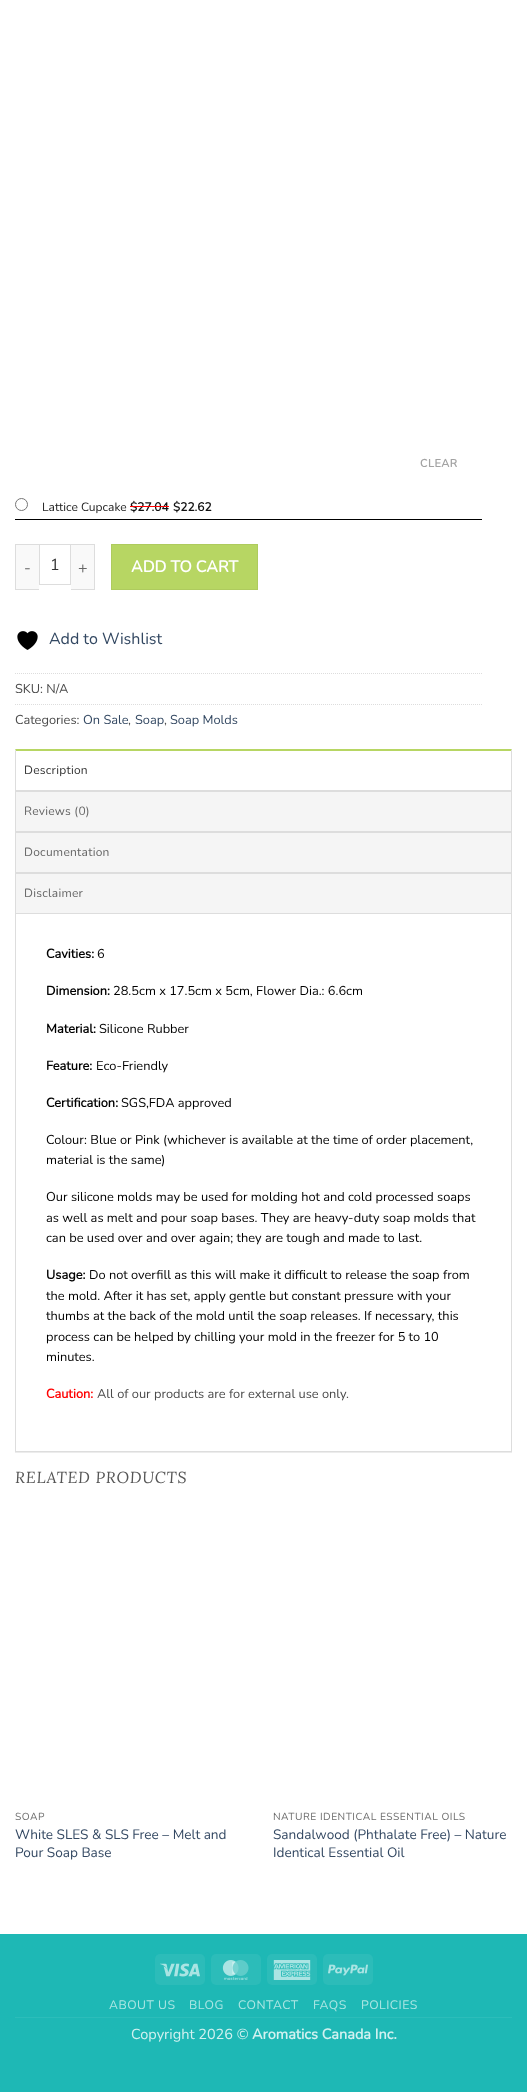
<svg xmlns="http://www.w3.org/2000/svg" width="527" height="2092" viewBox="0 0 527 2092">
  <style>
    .t1 { font: bold 11px Nunito; letter-spacing: 0.5px; fill: #a3a3a3; }
    .t2 { font: 200 12px Nunito; fill: #222; }
    .t3 { font: bold 12px Nunito; fill: #111; }
    .t4 { font: 200 16px Nunito; fill: #666; }
    .t5 { font: 200 16px Nunito; fill: #333; }
    .t6 { font: bold 16px Nunito; fill: #fff; }
    .t7 { font: 200 16px Nunito; fill: #334862; }
    .t8 { font: 200 12.8px Nunito; fill: #4a4a4a; }
    .t9 { font: 200 12.8px Nunito; fill: #334862; }
    .t10 { font: 200 12px Nunito; letter-spacing: 0.25px; fill: #333; }
    .t11 { font: 200 12px Nunito; letter-spacing: 0.25px; fill: #666; }
    .t12 { font: bold 12.8px Nunito; fill: #000; }
    .t13 { font: 200 12.8px Nunito; fill: #000; }
    .t14 { font: bold 12.8px Nunito; fill: #f00; }
    .t15 { font: italic 16px Lora; letter-spacing: 0.75px; fill: #555; }
    .t16 { font: 200 10.25px Nunito; letter-spacing: 0.5px; fill: #6e6e6e; }
    .t17 { font: 200 13.6px Nunito; fill: #334862; }
    .t18 { font: 200 12.25px Nunito; letter-spacing: 0.5px; fill: #aee6e4; }
    .t19 { font: 200 14.5px Nunito; fill: #d2f1f0; }
    .t20 { font: bold 14.5px Nunito; fill: #d2f1f0; }
  </style>
  <rect width="100%" height="100%" fill="#fff"/>
  <text x="420" y="467" class="t1">CLEAR</text>
  <rect x="15" y="519" width="467" height="1" fill="#000"/>
  <circle cx="21.5" cy="504.5" r="6" fill="none" stroke="#767676"/>
  <text x="42" y="511" class="t2">Lattice Cupcake</text>
  <text x="130" y="511" class="t3">$27.04</text>
  <rect x="130" y="506" width="39" height="1" fill="#f00"/>
  <text x="173" y="511" class="t3">$22.62</text>
  <rect x="16" y="545" width="23" height="44" fill="#f9f9f9"/>
  <rect x="15" y="544" width="24" height="1" fill="#ddd"/>
  <rect x="15" y="589" width="24" height="1" fill="#ddd"/>
  <rect x="15" y="544" width="1" height="46" fill="#ddd"/>
  <text x="24" y="573" class="t4">-</text>
  <rect x="39.5" y="544.5" width="31" height="40" fill="none" stroke="#ddd"/>
  <text x="50" y="570" class="t5">1</text>
  <rect x="71" y="545" width="23" height="44" fill="#f9f9f9"/>
  <rect x="71" y="544" width="24" height="1" fill="#ddd"/>
  <rect x="94" y="544" width="1" height="46" fill="#ddd"/>
  <rect x="71" y="589" width="24" height="1" fill="#ddd"/>
  <text x="78" y="573" class="t4">+</text>
  <rect x="111.5" y="544.5" width="146" height="45" fill="#b7d663" stroke="#aecb5e"/>
  <text x="131" y="572" class="t6">ADD TO CART</text>
  <image x="17" y="631" width="21" height="19" href="images/1.png"/>
  <text x="49" y="644" class="t7">Add to Wishlist</text>
  <path d="M15 673.5H482" fill="none" stroke="#ddd" stroke-dasharray="1 1"/>
  <text x="15" y="693" class="t8">SKU: N/A</text>
  <path d="M15 704.5H482" fill="none" stroke="#ddd" stroke-dasharray="1 1"/>
  <text x="15" y="724" class="t8">Categories:</text>
  <text x="83" y="724" class="t9">On Sale</text>
  <text x="128" y="724" class="t8">,</text>
  <text x="135" y="724" class="t9">Soap</text>
  <text x="164" y="724" class="t8">,</text>
  <text x="170" y="724" class="t9">Soap Molds</text>
  <path d="M15 749H512L511 751H16Z" fill="#b7d663"/>
  <path d="M512 749V790H511V751Z" fill="#ddd"/>
  <path d="M15 790V749L16 751V790Z" fill="#ddd"/>
  <text x="24" y="774" class="t10">Description</text>
  <rect x="16" y="792" width="495" height="39" fill="#f5f5f5"/>
  <rect x="15" y="790" width="497" height="2" fill="#ddd"/>
  <rect x="511" y="790" width="1" height="41" fill="#ddd"/>
  <rect x="15" y="790" width="1" height="41" fill="#ddd"/>
  <text x="24" y="815" class="t11">Reviews (0)</text>
  <rect x="16" y="833" width="495" height="39" fill="#f5f5f5"/>
  <rect x="15" y="831" width="497" height="2" fill="#ddd"/>
  <rect x="511" y="831" width="1" height="41" fill="#ddd"/>
  <rect x="15" y="831" width="1" height="41" fill="#ddd"/>
  <text x="24" y="856" class="t11">Documentation</text>
  <rect x="16" y="874" width="495" height="39" fill="#f5f5f5"/>
  <rect x="15" y="872" width="497" height="2" fill="#ddd"/>
  <rect x="511" y="872" width="1" height="41" fill="#ddd"/>
  <rect x="15" y="872" width="1" height="41" fill="#ddd"/>
  <text x="24" y="897" class="t11">Disclaimer</text>
  <rect x="15.5" y="913.5" width="496" height="538" fill="none" stroke="#ddd"/>
  <text x="46" y="958" class="t12">Cavities:</text>
  <text x="97" y="958" class="t13">6</text>
  <text x="46" y="995" class="t12">Dimension:</text>
  <text x="113" y="995" class="t13">28.5cm x 17.5cm x 5cm, Flower Dia.: 6.6cm</text>
  <text x="46" y="1033" class="t12">Material:</text>
  <text x="99" y="1033" class="t13">Silicone Rubber</text>
  <text x="46" y="1070" class="t12">Feature:</text>
  <text x="96" y="1070" class="t13">Eco-Friendly</text>
  <text x="46" y="1107" class="t12">Certification:</text>
  <text x="121" y="1107" class="t13">SGS,FDA approved</text>
  <text x="46" y="1144" class="t13">Colour: Blue or Pink (whichever is available at the time of order placement,</text>
  <text x="46" y="1164" class="t13">material is the same)</text>
  <text x="46" y="1201" class="t13">Our silicone molds may be used for molding hot and cold processed soaps</text>
  <text x="46" y="1222" class="t13">as well as melt and pour soap bases. They are heavy-duty soap molds that</text>
  <text x="46" y="1242" class="t13">can be used over and over again; they are tough and made to last.</text>
  <text x="46" y="1279" class="t12">Usage:</text>
  <text x="89" y="1279" class="t13">Do not overfill as this will make it difficult to release the soap from</text>
  <text x="46" y="1300" class="t13">the mold. After it has set, apply gentle but constant pressure with your</text>
  <text x="46" y="1320" class="t13">thumbs at the back of the mold until the soap releases. If necessary, this</text>
  <text x="46" y="1341" class="t13">process can be helped by chilling your mold in the freezer for 5 to 10</text>
  <text x="46" y="1361" class="t13">minutes.</text>
  <text x="46" y="1398" class="t14">Caution:</text>
  <text x="97" y="1398" class="t8">All of our products are for external use only.</text>
  <rect x="15" y="1452" width="497" height="1" fill="#ececec"/>
  <text x="15" y="1483" class="t15">RELATED PRODUCTS</text>
  <text x="15" y="1820" class="t16">SOAP</text>
  <text x="15" y="1839" class="t17">White SLES &amp; SLS Free – Melt and</text>
  <text x="15" y="1857" class="t17">Pour Soap Base</text>
  <text x="273" y="1820" class="t16">NATURE IDENTICAL ESSENTIAL OILS</text>
  <text x="273" y="1839" class="t17">Sandalwood (Phthalate Free) – Nature</text>
  <text x="273" y="1857" class="t17">Identical Essential Oil</text>
  <rect x="0" y="1934" width="527" height="158" fill="#1eb8b5"/>
  <rect x="155" y="1954" width="50" height="31" rx="5" fill="#2cbcb9"/>
  <image x="160" y="1963" width="40" height="14" href="images/2.png"/>
  <rect x="211" y="1954" width="50" height="31" rx="5" fill="#2cbcb9"/>
  <image x="222" y="1960" width="27" height="20" href="images/3.png"/>
  <rect x="267" y="1954" width="50" height="31" rx="5" fill="#2cbcb9"/>
  <image x="273" y="1960" width="38" height="20" href="images/4.png"/>
  <rect x="323" y="1954" width="50" height="31" rx="5" fill="#2cbcb9"/>
  <image x="328" y="1964" width="40" height="12" href="images/5.png"/>
  <rect x="15" y="2017" width="497" height="1" fill="#2cbdba"/>
  <text x="109" y="2009" class="t18">ABOUT US</text>
  <text x="189" y="2009" class="t18">BLOG</text>
  <text x="238" y="2009" class="t18">CONTACT</text>
  <text x="313" y="2009" class="t18">FAQS</text>
  <text x="361" y="2009" class="t18">POLICIES</text>
  <text x="131" y="2039" class="t19">Copyright 2026 ©</text>
  <text x="252" y="2039" class="t20">Aromatics Canada Inc.</text>
</svg>
